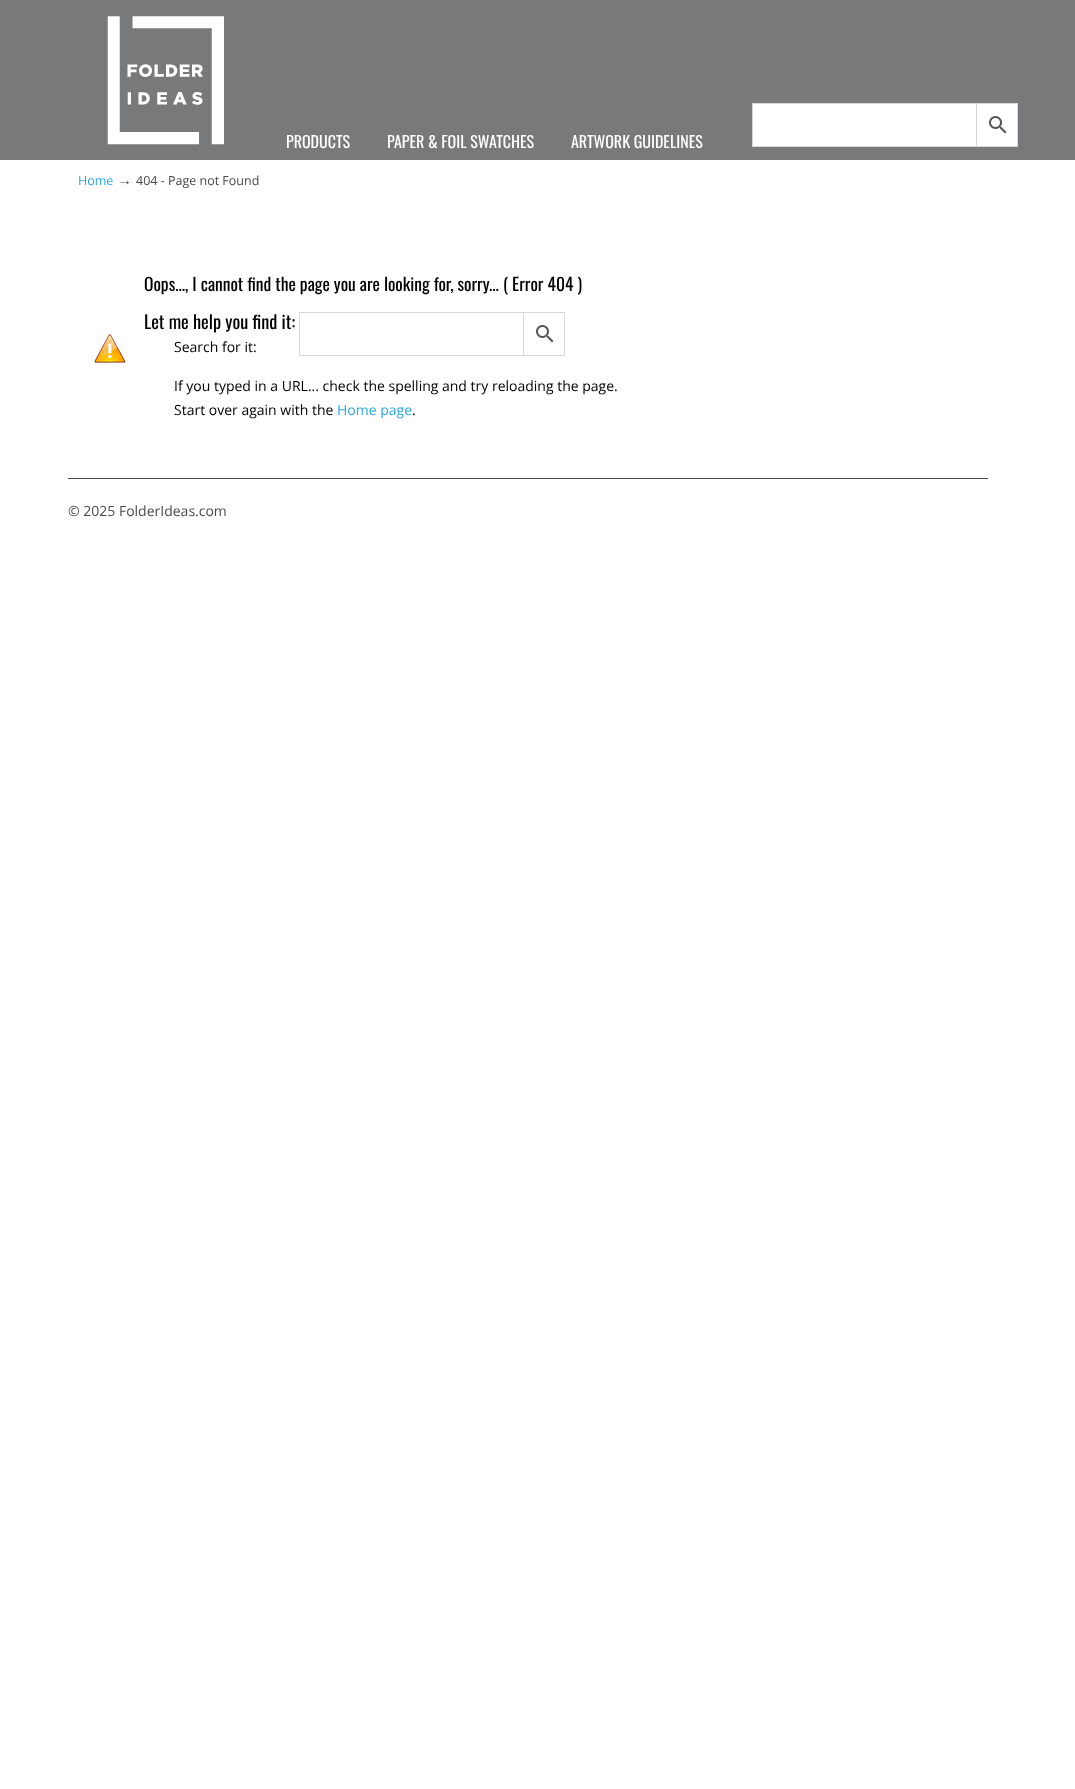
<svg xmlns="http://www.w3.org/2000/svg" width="1075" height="1789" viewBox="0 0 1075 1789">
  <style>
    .t1 { font: 16px Oswald; fill: #fff; }
    .t2 { font: 12.5px Open Sans; fill: #2aa9e0; }
    .t3 { font: 15px Liberation Serif; fill: #4a4a4a; }
    .t4 { font: 12.5px Open Sans; fill: #4a4a4a; }
    .t5 { font: 17.5px Oswald; fill: #000; }
    .t6 { font: 18.25px Oswald; fill: #000; }
    .t7 { font: 14px Open Sans; fill: #000; }
    .t8 { font: 14px Open Sans; fill: #2aa9e0; }
    .t9 { font: 14px Open Sans; fill: #4a4a4a; }
  </style>
  <rect width="100%" height="100%" fill="#fff"/>
  <rect x="0" y="0" width="1075" height="160" fill="#78797a"/>
  <image x="107" y="16" width="117" height="129" href="images/1.png"/>
  <text x="286" y="148" class="t1">PRODUCTS</text>
  <text x="387" y="148" class="t1">PAPER &amp; FOIL SWATCHES</text>
  <text x="571" y="148" class="t1">ARTWORK GUIDELINES</text>
  <rect x="976.5" y="103.5" width="41" height="43" fill="#fff" stroke="#d8d8d8"/>
  <rect x="752.5" y="103.5" width="224" height="43" fill="#fff" stroke="#d8d8d8"/>
  <image x="989" y="116" width="18" height="18" href="images/2.png"/>
  <text x="78" y="185" class="t2">Home</text>
  <text x="117" y="185" class="t3">→</text>
  <text x="136" y="185" class="t4">404 - Page not Found</text>
  <text x="144" y="291" class="t5">Oops..., I cannot find the page you are looking for, sorry... ( Error 404 )</text>
  <image x="94" y="334" width="32" height="29" href="images/3.png"/>
  <text x="144" y="329" class="t6">Let me help you find it:</text>
  <text x="174" y="352" class="t7">Search for it:</text>
  <rect x="523.5" y="312.5" width="41" height="43" fill="none" stroke="#d8d8d8"/>
  <rect x="299.5" y="312.5" width="224" height="43" fill="none" stroke="#d8d8d8"/>
  <image x="536" y="325" width="18" height="18" href="images/2.png"/>
  <text x="174" y="391" class="t7">If you typed in a URL... check the spelling and try reloading the page.</text>
  <text x="174" y="415" class="t7">Start over again with the</text>
  <text x="337" y="415" class="t8">Home page</text>
  <text x="412" y="415" class="t7">.</text>
  <rect x="68" y="478" width="920" height="1" fill="#4a4a4a"/>
  <text x="68" y="516" class="t9">© 2025 FolderIdeas.com</text>
</svg>
